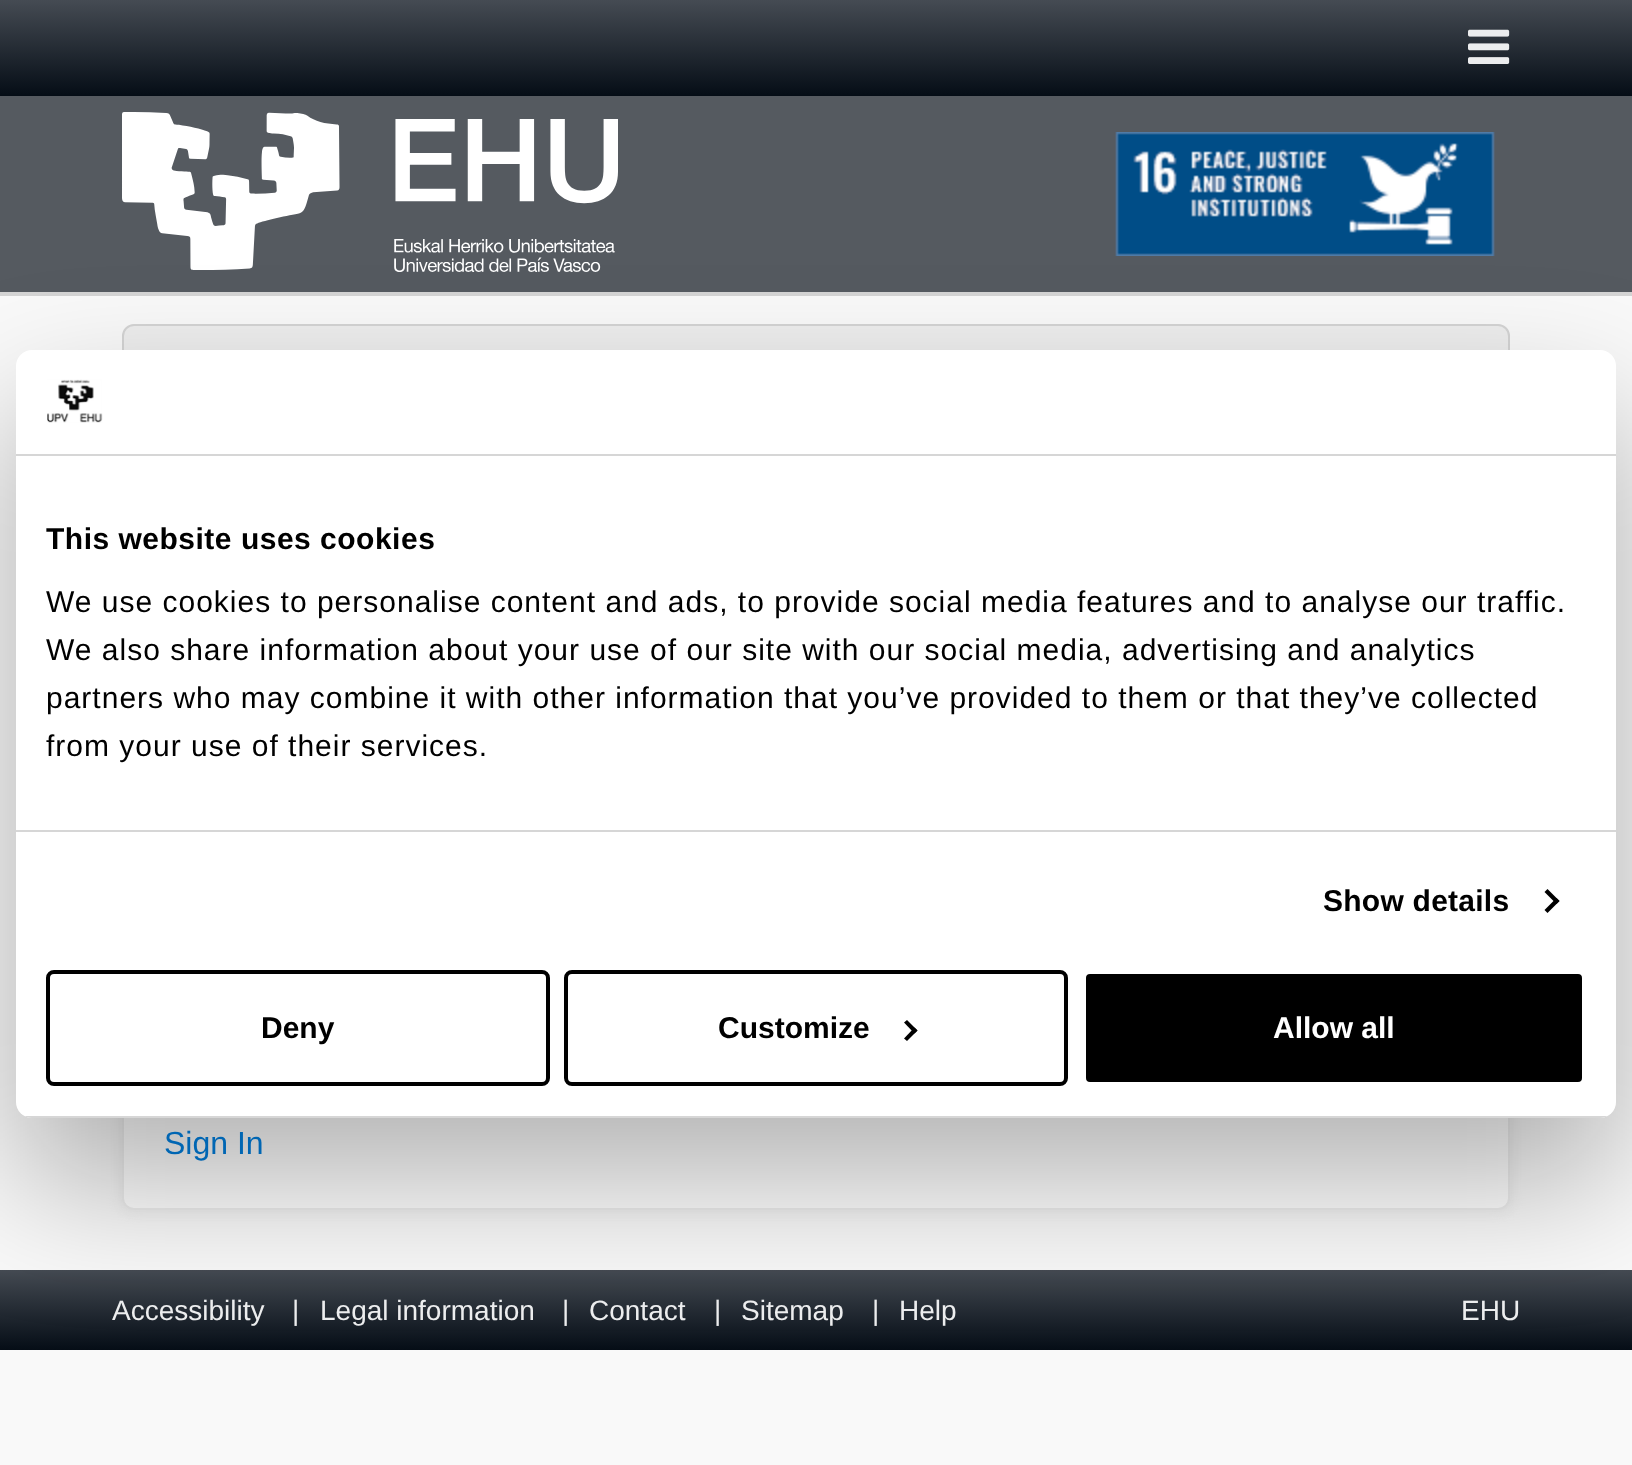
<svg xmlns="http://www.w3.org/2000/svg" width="1632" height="1465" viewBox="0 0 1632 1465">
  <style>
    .t1 { font: bold 30px Liberation Sans; letter-spacing: 0.5px; fill: #000; }
    .t2 { font: 30px Liberation Sans; letter-spacing: 1px; fill: #000; }
    .t3 { font: bold 30px Liberation Sans; letter-spacing: 0.25px; fill: #000; }
    .t4 { font: bold 30px Liberation Sans; fill: #000; }
    .t5 { font: bold 30px Liberation Sans; fill: #fff; }
    .t6 { font: 32px Liberation Sans; fill: #0066b3; }
    .t7 { font: 28px Liberation Sans; fill: #ecedee; }
  </style>
  <defs>
    <linearGradient id="g1" gradientUnits="userSpaceOnUse" x1="816" y1="1350" x2="816" y2="1270"><stop offset="0" stop-color="#050d16"/><stop offset="1" stop-color="#454b53"/></linearGradient>
    <clipPath id="clip1"><rect x="16" y="350" width="1600" height="768" rx="16"/></clipPath>
    <linearGradient id="g2" gradientUnits="userSpaceOnUse" x1="816" y1="96" x2="816" y2="0"><stop offset="0" stop-color="#050d16"/><stop offset="1" stop-color="#454b53"/></linearGradient>
  </defs>
  <rect width="100%" height="100%" fill="#f9f9f9"/>
  <rect x="0" y="96" width="1632" height="196" fill="#555a60"/>
  <image x="122" y="112" width="496" height="160" href="images/3.png"/>
  <image x="1115" y="132" width="380" height="124" href="images/4.png"/>
  <rect x="0" y="292" width="1632" height="4" fill="#d4d4d4"/>
  <rect x="123" y="325" width="1386" height="178" rx="11" fill="#eee" stroke="#d4d4d4" stroke-width="2"/>
  <rect x="118" y="532" width="1396" height="682" rx="16" fill="#efefef" filter="blur(5px)"/>
  <rect x="123" y="537" width="1386" height="672" rx="11" fill="#fff" stroke="#efefef" stroke-width="2"/>
  <rect x="0" y="1270" width="1632" height="80" fill="url(#g1)"/>
  <rect x="16" y="414" width="1600" height="768" rx="16" fill="#0000004d" filter="blur(68px)"/>
  <rect x="16" y="350" width="1600" height="768" rx="16" fill="#fff"/>
  <rect x="16" y="454" width="1600" height="2" fill="#d6d6d6"/>
  <image x="47" y="379" width="56" height="44" href="images/1.png"/>
  <rect x="16" y="830" width="1600" height="2" fill="#d6d6d6"/>
  <text x="46" y="549" class="t1">This website uses cookies</text>
  <text x="46" y="612" class="t2">We use cookies to personalise content and ads, to provide social media features and to analyse our traffic.</text>
  <text x="46" y="660" class="t2">We also share information about your use of our site with our social media, advertising and analytics</text>
  <text x="46" y="708" class="t2">partners who may combine it with other information that you’ve provided to them or that they’ve collected</text>
  <text x="46" y="756" class="t2">from your use of their services.</text>
  <text x="1323" y="911" class="t3">Show details</text>
  <path d="M1547.5 889L1559.5 901L1556.5 904L1544.5 892Z" fill="#000"/>
  <path d="M1556.5 898L1559.5 901L1547.5 913L1544.5 910Z" fill="#000"/>
  <g clip-path="url(#clip1)">
    <rect x="16" y="1116" width="1600" height="2" fill="#d6d6d6"/>
  </g>
  <rect x="48" y="972" width="500" height="112" rx="6" fill="none" stroke="#000" stroke-width="4"/>
  <text x="261" y="1038" class="t4">Deny</text>
  <rect x="566" y="972" width="500" height="112" rx="6" fill="none" stroke="#000" stroke-width="4"/>
  <text x="718" y="1038" class="t4">Customize</text>
  <path d="M907 1020L917.5 1030.5L914.5 1033.5L904 1022.5Z" fill="#000"/>
  <path d="M914.5 1027.5L917.5 1030.5L907 1041L904 1038.5Z" fill="#000"/>
  <rect x="1084" y="972" width="500" height="112" rx="6" fill="#000" stroke="#fff" stroke-width="4"/>
  <text x="1273" y="1038" class="t5">Allow all</text>
  <rect x="0" y="0" width="1632" height="96" fill="url(#g2)"/>
  <image x="1468" y="29" width="42" height="35" href="images/2.png"/>
  <text x="164" y="1154" class="t6">Sign In</text>
  <text x="112" y="1320" class="t7">Accessibility</text>
  <text x="292" y="1320" class="t7">|</text>
  <text x="320" y="1320" class="t7">Legal information</text>
  <text x="562" y="1320" class="t7">|</text>
  <text x="589" y="1320" class="t7">Contact</text>
  <text x="714" y="1320" class="t7">|</text>
  <text x="741" y="1320" class="t7">Sitemap</text>
  <text x="872" y="1320" class="t7">|</text>
  <text x="899" y="1320" class="t7">Help</text>
  <text x="1461" y="1320" class="t7">EHU</text>
</svg>
